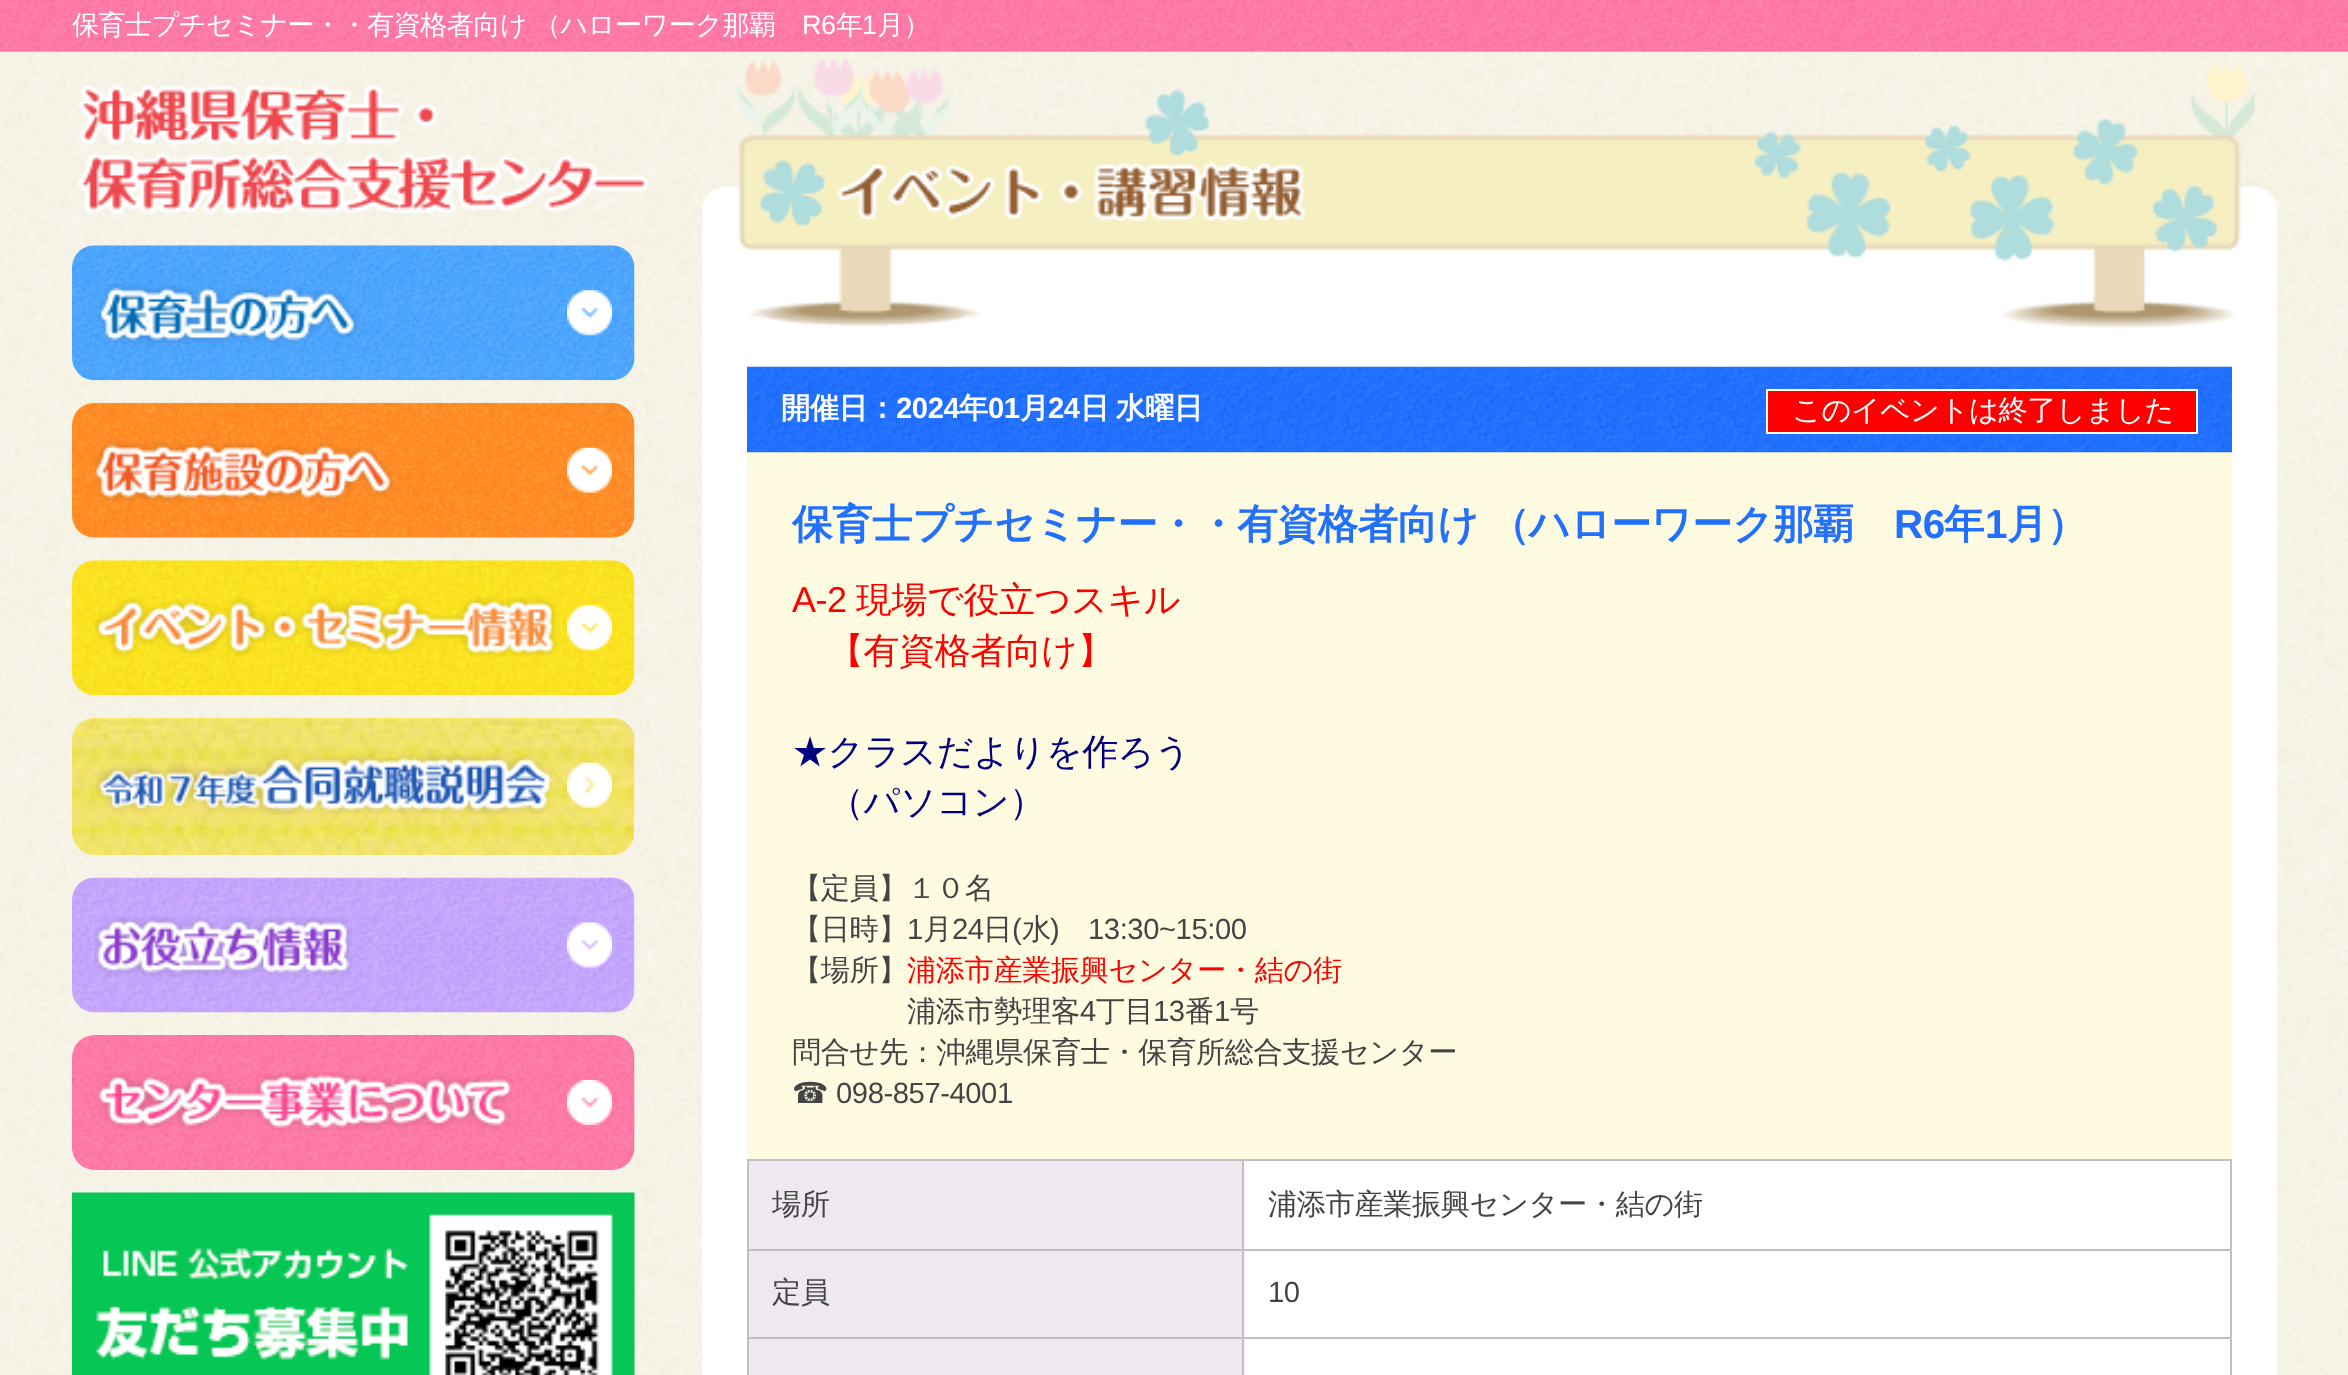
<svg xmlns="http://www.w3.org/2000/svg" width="2348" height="1375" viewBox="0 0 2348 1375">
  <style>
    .t1 { font: 500 27px WenQuanYi Zen Hei; letter-spacing: -0.45px; fill: #fff; }
    .t2 { font: 27px Liberation Sans; letter-spacing: -0.45px; fill: #fff; }
    .t3 { font: bold 29.25px WenQuanYi Zen Hei; letter-spacing: -0.45px; fill: #fff; }
    .t4 { font: bold 29.25px Liberation Sans; letter-spacing: -0.45px; fill: #fff; }
    .t5 { font: 500 29.25px WenQuanYi Zen Hei; letter-spacing: -0.45px; fill: #fff; }
    .t6 { font: bold 40.5px WenQuanYi Zen Hei; letter-spacing: -0.45px; fill: #2170ff; }
    .t7 { font: bold 40.5px Liberation Sans; letter-spacing: -0.45px; fill: #2170ff; }
    .t8 { font: 36px Liberation Sans; letter-spacing: -0.45px; fill: #f00; }
    .t9 { font: 500 36px WenQuanYi Zen Hei; letter-spacing: -0.45px; fill: #f00; }
    .t10 { font: 500 36px WenQuanYi Zen Hei; letter-spacing: -0.45px; fill: #000080; }
    .t11 { font: 500 29.25px WenQuanYi Zen Hei; letter-spacing: -0.45px; fill: #444; }
    .t12 { font: 29.25px Liberation Sans; letter-spacing: -0.45px; fill: #444; }
    .t13 { font: 500 29.25px WenQuanYi Zen Hei; letter-spacing: -0.45px; fill: #f00; }
    .t14 { font: 29.25px DejaVu Sans; letter-spacing: -0.45px; fill: #444; }
  </style>
  <rect width="100%" height="100%" fill="#fff"/>
  <image x="0" y="51" width="2348" height="1324" href="images/1.png"/>
  <image x="0" y="0" width="2348" height="52" href="images/2.png"/>
  <text x="72" y="34" class="t1">保育士プチセミナー・・有資格者向け</text>
  <text x="534" y="34" class="t1">（ハローワーク那覇</text>
  <text x="802" y="34" class="t2">R6</text>
  <text x="836" y="34" class="t1">年</text>
  <text x="862" y="34" class="t2">1</text>
  <text x="877" y="34" class="t1">月）</text>
  <image x="78" y="84" width="571" height="130" href="images/3.png"/>
  <image x="72" y="245" width="563" height="136" href="images/4.png"/>
  <image x="567" y="290" width="45" height="46" href="images/5.png"/>
  <image x="98" y="283" width="260" height="62" href="images/6.png"/>
  <image x="72" y="402" width="563" height="136" href="images/7.png"/>
  <image x="567" y="447" width="45" height="46" href="images/8.png"/>
  <image x="95" y="440" width="299" height="63" href="images/9.png"/>
  <image x="72" y="560" width="563" height="136" href="images/10.png"/>
  <image x="567" y="605" width="45" height="46" href="images/11.png"/>
  <image x="94" y="597" width="463" height="60" href="images/12.png"/>
  <image x="72" y="717" width="563" height="138" href="images/13.png"/>
  <image x="567" y="762" width="45" height="46" href="images/14.png"/>
  <image x="95" y="754" width="457" height="61" href="images/15.png"/>
  <image x="72" y="877" width="563" height="136" href="images/16.png"/>
  <image x="567" y="922" width="45" height="46" href="images/17.png"/>
  <image x="95" y="916" width="257" height="61" href="images/18.png"/>
  <image x="72" y="1035" width="563" height="135" href="images/19.png"/>
  <image x="567" y="1080" width="45" height="45" href="images/20.png"/>
  <image x="97" y="1072" width="416" height="59" href="images/21.png"/>
  <image x="72" y="1192" width="563" height="183" href="images/22.png"/>
  <rect x="702" y="187" width="1575" height="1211" rx="23" fill="#fff"/>
  <image x="735" y="58" width="1520" height="271" href="images/23.png"/>
  <image x="836" y="161" width="470" height="62" href="images/24.png"/>
  <rect x="747" y="452" width="1485" height="707" fill="#fffbe1"/>
  <image x="747" y="366" width="1485" height="87" href="images/25.png"/>
  <text x="781" y="418" class="t3">開催日：</text>
  <text x="896" y="418" class="t4">2024</text>
  <text x="959" y="418" class="t3">年</text>
  <text x="988" y="418" class="t4">01</text>
  <text x="1020" y="418" class="t3">月</text>
  <text x="1048" y="418" class="t4">24</text>
  <text x="1080" y="418" word-spacing="-1" class="t3">日 水曜日</text>
  <rect x="1767" y="390" width="430" height="43" fill="#f00" stroke="#fff" stroke-width="2"/>
  <text x="1792" y="420" class="t5">このイベントは終了しました</text>
  <text x="792" y="538" class="t6">保育士プチセミナー・・有資格者向け</text>
  <text x="1489" y="538" class="t6">（ハローワーク那覇</text>
  <text x="1894" y="538" class="t7">R6</text>
  <text x="1944" y="538" class="t6">年</text>
  <text x="1985" y="538" class="t7">1</text>
  <text x="2007" y="538" class="t6">月）</text>
  <text x="792" y="612" class="t8">A-2</text>
  <text x="856" y="612" class="t9">現場で役立つスキル</text>
  <text x="828" y="663" class="t9">【有資格者向け】</text>
  <text x="792" y="764" class="t10">★クラスだよりを作ろう</text>
  <text x="828" y="814" class="t10">（パソコン）</text>
  <text x="792" y="898" class="t11">【定員】１０名</text>
  <text x="792" y="939" class="t11">【日時】</text>
  <text x="907" y="939" class="t12">1</text>
  <text x="923" y="939" class="t11">月</text>
  <text x="952" y="939" class="t12">24</text>
  <text x="983" y="939" class="t11">日</text>
  <text x="1012" y="939" class="t12">(</text>
  <text x="1022" y="939" class="t11">水</text>
  <text x="1050" y="939" class="t12">)</text>
  <text x="1088" y="939" class="t12">13:30~15:00</text>
  <text x="792" y="980" class="t11">【場所】</text>
  <text x="907" y="980" class="t13">浦添市産業振興センター・結の街</text>
  <text x="907" y="1021" class="t11">浦添市勢理客</text>
  <text x="1080" y="1021" class="t12">4</text>
  <text x="1096" y="1021" class="t11">丁目</text>
  <text x="1153" y="1021" class="t12">13</text>
  <text x="1185" y="1021" class="t11">番</text>
  <text x="1214" y="1021" class="t12">1</text>
  <text x="1230" y="1021" class="t11">号</text>
  <text x="792" y="1062" class="t11">問合せ先：沖縄県保育士・保育所総合支援センター</text>
  <text x="792" y="1103" class="t14">☎</text>
  <text x="836" y="1103" class="t12">098-857-4001</text>
  <rect x="747" y="1159" width="1485" height="2" fill="#c0c0c0"/>
  <rect x="2230" y="1159" width="2" height="216" fill="#c0c0c0"/>
  <rect x="747" y="1159" width="2" height="216" fill="#c0c0c0"/>
  <rect x="749" y="1161" width="493" height="88" fill="#efe8f0"/>
  <text x="772" y="1214" class="t11">場所</text>
  <rect x="1242" y="1249" width="990" height="2" fill="#c0c0c0"/>
  <rect x="1242" y="1337" width="990" height="2" fill="#c0c0c0"/>
  <rect x="1242" y="1337" width="2" height="38" fill="#c0c0c0"/>
  <rect x="747" y="1337" width="497" height="2" fill="#c0c0c0"/>
  <rect x="1242" y="1249" width="2" height="90" fill="#c0c0c0"/>
  <rect x="747" y="1249" width="497" height="2" fill="#c0c0c0"/>
  <rect x="1242" y="1159" width="2" height="92" fill="#c0c0c0"/>
  <text x="1268" y="1214" class="t11">浦添市産業振興センター・結の街</text>
  <rect x="749" y="1251" width="493" height="86" fill="#efe8f0"/>
  <text x="772" y="1302" class="t11">定員</text>
  <text x="1268" y="1302" class="t12">10</text>
  <rect x="749" y="1339" width="493" height="36" fill="#efe8f0"/>
</svg>
